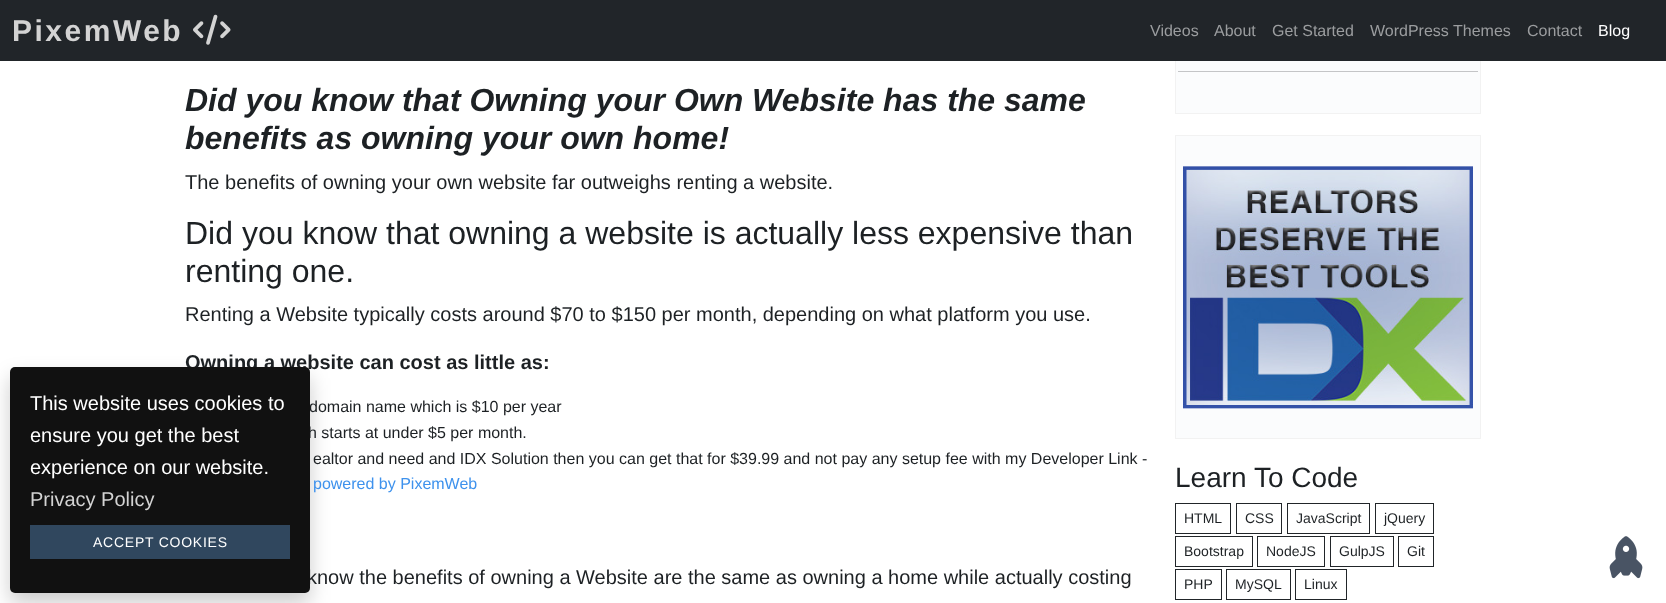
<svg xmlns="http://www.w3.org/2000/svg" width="1666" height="603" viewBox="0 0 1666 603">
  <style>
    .t1 { font: bold 30px Liberation Sans; letter-spacing: 2.5px; fill: #d3d3d3; }
    .t2 { font: 16px Liberation Sans; fill: #9b9d9f; }
    .t3 { font: 16px Liberation Sans; fill: #fff; }
    .t4 { font: bold 20px Liberation Sans; fill: #1d2124; }
    .t5 { font: 16px Liberation Sans; fill: #1d2124; }
    .t6 { font: 20px Liberation Sans; fill: #1d2124; }
    .t7 { font: 20px Liberation Sans; fill: #fff; }
    .t8 { font: 20px Liberation Sans; fill: #d3d3d3; }
    .t9 { font: 14px Liberation Sans; letter-spacing: 0.75px; fill: #fff; }
    .t10 { font: italic bold 32px Liberation Sans; fill: #1d2124; }
    .t11 { font: 32px Liberation Sans; fill: #1d2124; }
    .t12 { font: 16px Liberation Sans; fill: #3e92ed; }
    .t13 { font: 28px Liberation Sans; fill: #1d2124; }
    .t14 { font: 14px Liberation Sans; fill: #1d2124; }
  </style>
  <rect width="100%" height="100%" fill="#fff"/>
  <rect x="1176" y="61" width="304" height="52" fill="#fbfcfd"/>
  <rect x="1175.5" y="-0.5" width="305" height="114" fill="none" stroke="#f2f2f2"/>
  <rect x="0" y="0" width="1666" height="61" fill="#212529"/>
  <text x="12" y="41" class="t1">PixemWeb</text>
  <image x="193" y="14" width="38" height="31" href="images/1.png"/>
  <text x="1150" y="36" class="t2">Videos</text>
  <text x="1214" y="36" class="t2">About</text>
  <text x="1272" y="36" class="t2">Get Started</text>
  <text x="1370" y="36" class="t2">WordPress Themes</text>
  <text x="1527" y="36" class="t2">Contact</text>
  <text x="1598" y="36" class="t3">Blog</text>
  <rect x="10" y="377" width="300" height="226" rx="5" fill="#00000033" filter="blur(10px)"/>
  <text x="185" y="369" class="t4">Owning a website can cost as little as:</text>
  <text x="309" y="412" class="t5">domain name which is $10 per year</text>
  <text x="308" y="438" class="t5">h starts at under $5 per month.</text>
  <text x="307" y="584" class="t6">know the benefits of owning a Website are the same as owning a home while actually costing</text>
  <rect x="10" y="367" width="300" height="226" rx="5" fill="#111"/>
  <text x="30" y="410" class="t7">This website uses cookies to</text>
  <text x="30" y="442" class="t7">ensure you get the best</text>
  <text x="30" y="474" class="t7">experience on our website.</text>
  <text x="30" y="506" class="t8">Privacy Policy</text>
  <rect x="30" y="525" width="260" height="34" fill="#30475e"/>
  <text x="93" y="547" class="t9">ACCEPT COOKIES</text>
  <text x="185" y="111" class="t10">Did you know that Owning your Own Website has the same</text>
  <text x="185" y="149" class="t10">benefits as owning your own home!</text>
  <text x="185" y="189" class="t6">The benefits of owning your own website far outweighs renting a website.</text>
  <text x="185" y="244" class="t11">Did you know that owning a website is actually less expensive than</text>
  <text x="185" y="282" class="t11">renting one.</text>
  <text x="185" y="321" class="t6">Renting a Website typically costs around $70 to $150 per month, depending on what platform you use.</text>
  <text x="313" y="464" class="t5">ealtor and need and IDX Solution then you can get that for $39.99 and not pay any setup fee with my Developer Link -</text>
  <text x="313" y="489" class="t12">powered by PixemWeb</text>
  <rect x="1178" y="71" width="300" height="1" fill="#c4c5c7"/>
  <rect x="1175.5" y="135.5" width="305" height="303" fill="#fbfcfd" stroke="#f2f2f2"/>
  <image x="1183" y="166" width="290" height="243" href="images/2.png"/>
  <text x="1175" y="487" class="t13">Learn To Code</text>
  <rect x="1175.5" y="503.5" width="55" height="30" fill="none" stroke="#212529"/>
  <text x="1184" y="523" class="t14">HTML</text>
  <rect x="1236.5" y="503.5" width="45" height="30" fill="none" stroke="#212529"/>
  <text x="1245" y="523" class="t14">CSS</text>
  <rect x="1287.5" y="503.5" width="82" height="30" fill="none" stroke="#212529"/>
  <text x="1296" y="523" class="t14">JavaScript</text>
  <rect x="1375.5" y="503.5" width="58" height="30" fill="none" stroke="#212529"/>
  <text x="1384" y="523" class="t14">jQuery</text>
  <rect x="1175.5" y="536.5" width="77" height="30" fill="none" stroke="#212529"/>
  <text x="1184" y="556" class="t14">Bootstrap</text>
  <rect x="1257.5" y="536.5" width="67" height="30" fill="none" stroke="#212529"/>
  <text x="1266" y="556" class="t14">NodeJS</text>
  <rect x="1330.5" y="536.5" width="63" height="30" fill="none" stroke="#212529"/>
  <text x="1339" y="556" class="t14">GulpJS</text>
  <rect x="1398.5" y="536.5" width="35" height="30" fill="none" stroke="#212529"/>
  <text x="1407" y="556" class="t14">Git</text>
  <rect x="1175.5" y="569.5" width="46" height="30" fill="none" stroke="#212529"/>
  <text x="1184" y="589" class="t14">PHP</text>
  <rect x="1226.5" y="569.5" width="64" height="30" fill="none" stroke="#212529"/>
  <text x="1235" y="589" class="t14">MySQL</text>
  <rect x="1295.5" y="569.5" width="51" height="30" fill="none" stroke="#212529"/>
  <text x="1304" y="589" class="t14">Linux</text>
  <image x="1609" y="536" width="34" height="43" href="images/3.png"/>
</svg>
